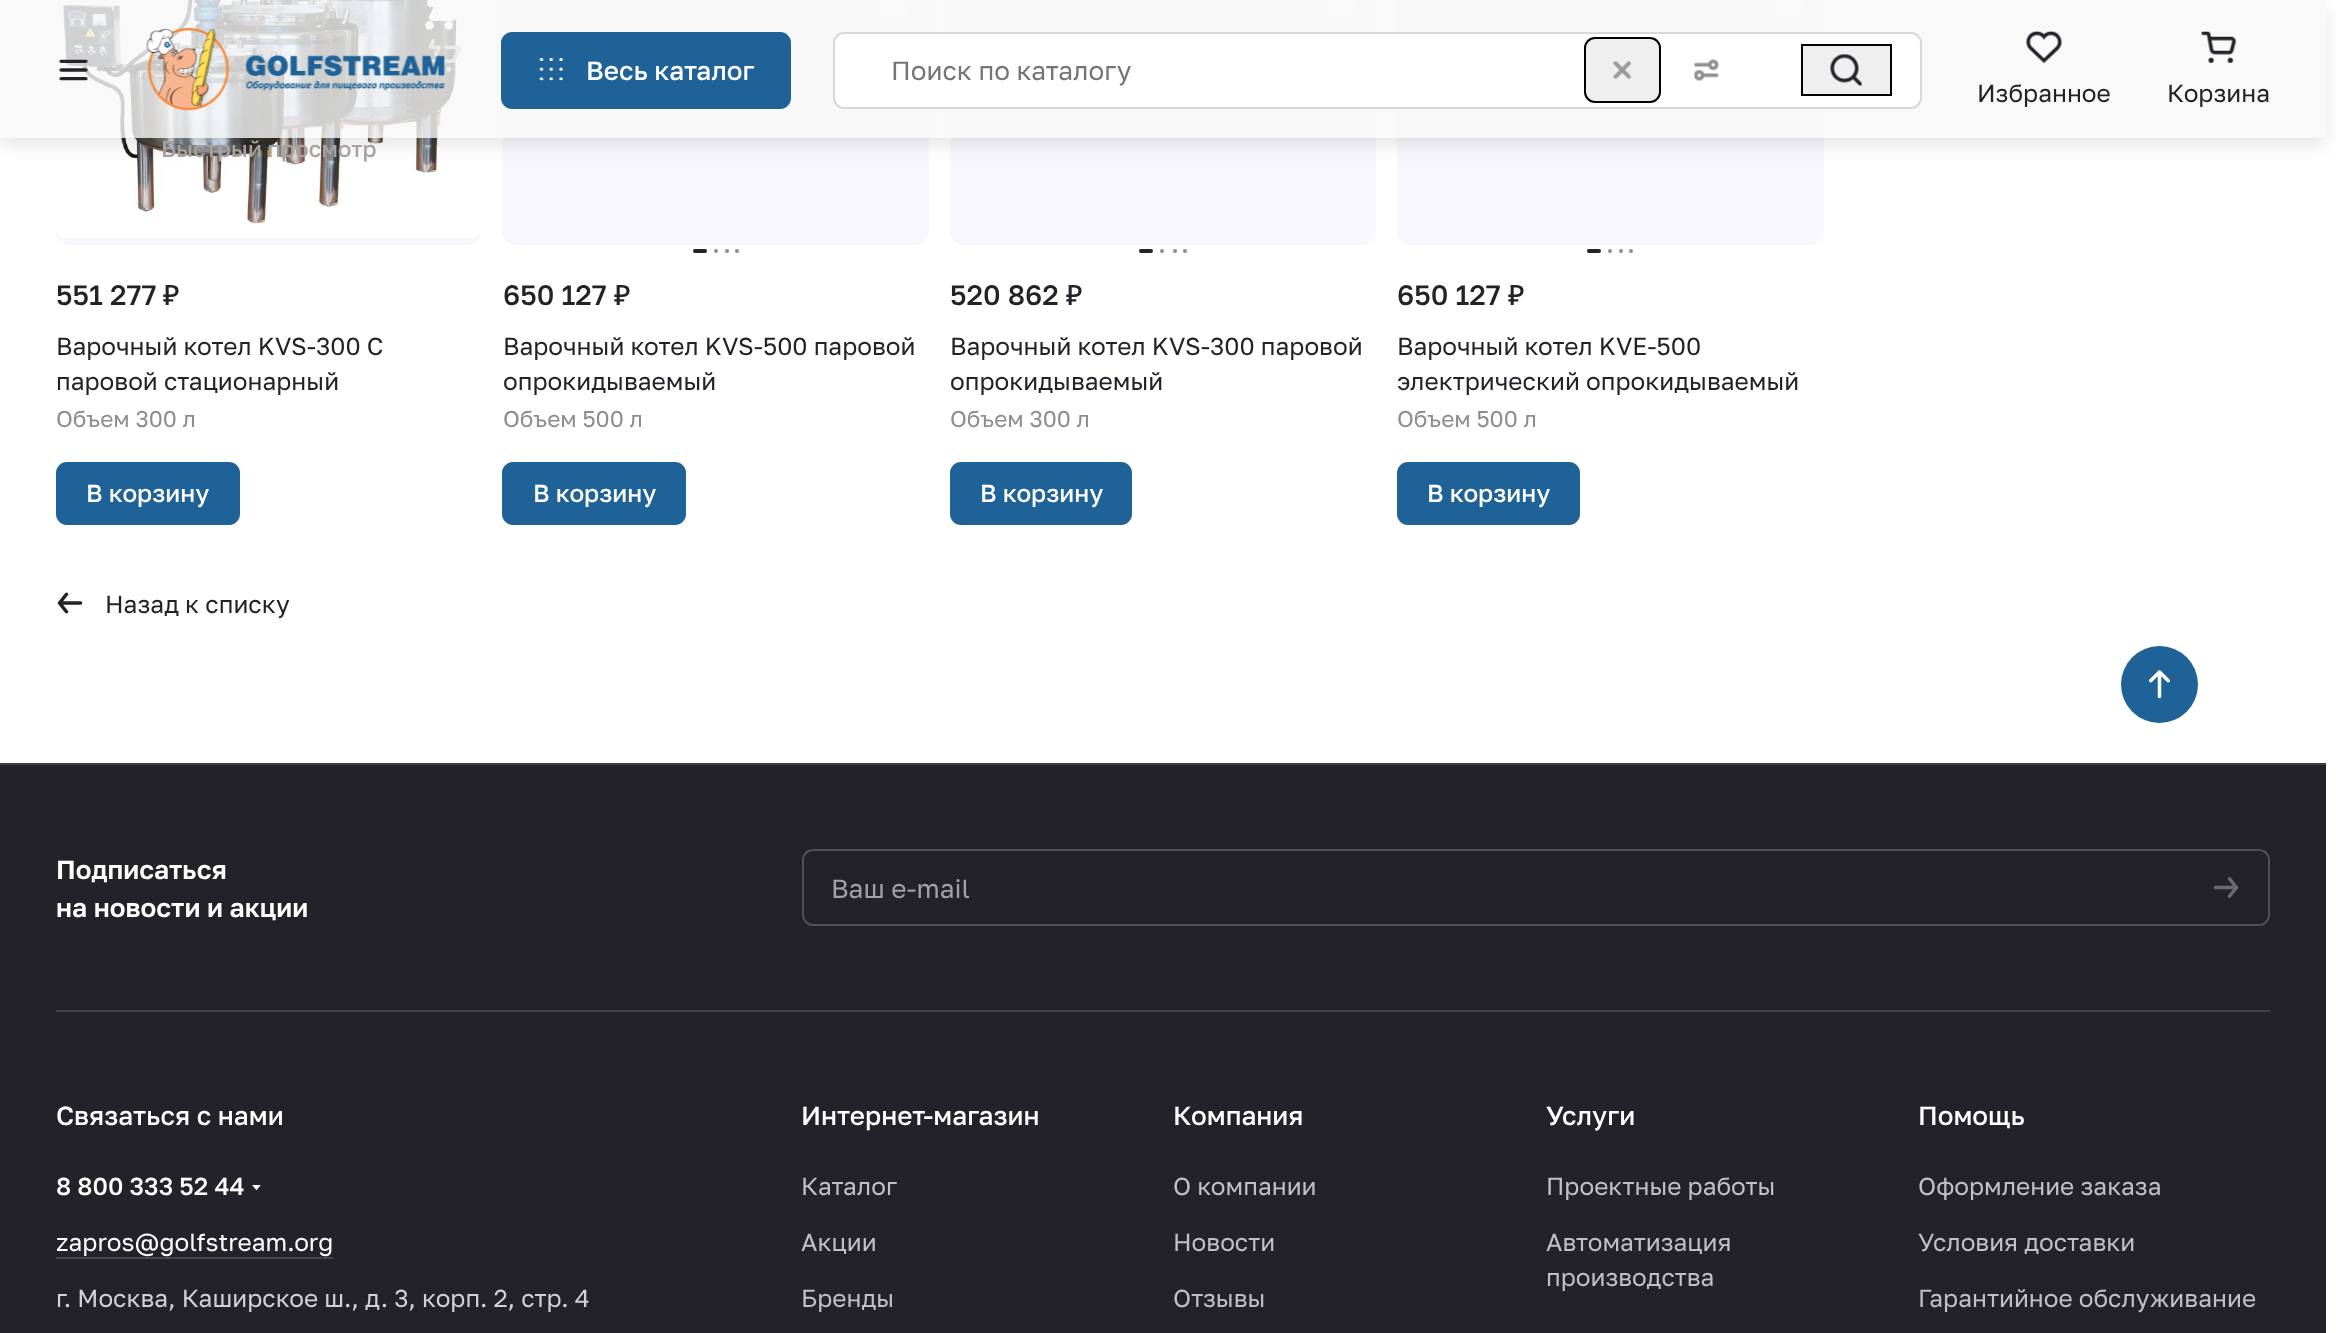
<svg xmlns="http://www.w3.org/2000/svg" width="2336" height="1333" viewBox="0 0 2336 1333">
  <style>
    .t1 { font: 500 26.25px Golos Text; fill: #fff; }
    .t2 { font: 26.25px Golos Text; fill: #757575; }
    .t3 { font: 24.5px Golos Text; fill: #222228; }
    .t4 { font: 500 22.75px Golos Text; fill: #a5a2a1; }
    .t5 { font: 500 28px Golos Text; fill: #222228; }
    .t6 { font: 500 28px Noto Sans; fill: #222228; }
    .t7 { font: 22.75px Golos Text; fill: #8d8d8d; }
    .t8 { font: 500 24.5px Golos Text; fill: #fff; }
    .t9 { font: 600 26.25px Golos Text; fill: #fff; }
    .t10 { font: 26.25px Golos Text; fill: #a1a1a7; }
    .t11 { font: 24.5px Golos Text; fill: #fff; }
    .t12 { font: 24.5px Golos Text; fill: #d1d1d7; }
    .t13 { font: 24.5px Golos Text; fill: #c1c1c3; }
  </style>
  <defs>
    <clipPath id="clip1"><path d="M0 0H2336V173H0ZM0 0H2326V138H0Z" clip-rule="evenodd"/></clipPath>
  </defs>
  <rect width="100%" height="100%" fill="#fff"/>
  <rect x="56" y="-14" width="425" height="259" rx="14" fill="#f8f8fc"/>
  <image x="56" y="0" width="425" height="238" href="images/9.png"/>
  <image x="425" y="0" width="32" height="30" href="images/10.png"/>
  <image x="427" y="39" width="34" height="33" href="images/11.png"/>
  <rect x="502" y="-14" width="427" height="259" rx="14" fill="#f8f8fc"/>
  <image x="873" y="0" width="38" height="30" href="images/12.png"/>
  <rect x="950" y="-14" width="426" height="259" rx="14" fill="#f8f8fc"/>
  <image x="1320" y="0" width="37" height="30" href="images/13.png"/>
  <rect x="1397" y="-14" width="427" height="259" rx="14" fill="#f8f8fc"/>
  <image x="1768" y="0" width="37" height="30" href="images/13.png"/>
  <rect x="0" y="0" width="2326" height="138" fill="#f7f7f7cc"/>
  <g clip-path="url(#clip1)">
    <rect x="0" y="7" width="2326" height="138" fill="#0000001a" filter="blur(9px)"/>
  </g>
  <image x="59" y="59" width="29" height="22" href="images/1.png"/>
  <image x="146" y="28" width="299" height="83" href="images/2.png"/>
  <rect x="502" y="33" width="288" height="75" rx="10" fill="#1e6297" stroke="#1e6297" stroke-width="2"/>
  <image x="539" y="58" width="25" height="23" href="images/3.png"/>
  <text x="586" y="80" class="t1">Весь каталог</text>
  <rect x="834" y="33" width="1087" height="75" rx="10" fill="#fff" stroke="#d7d8da" stroke-width="2"/>
  <text x="891" y="80" class="t2">Поиск по каталогу</text>
  <rect x="1585" y="38" width="75" height="64" rx="10" fill="#efefef" stroke="#000" stroke-width="2"/>
  <image x="1613" y="61" width="19" height="18" href="images/4.png"/>
  <image x="1693" y="59" width="26" height="22" href="images/5.png"/>
  <rect x="1802" y="45" width="89" height="50" fill="#efefef" stroke="#000" stroke-width="2"/>
  <image x="1830" y="53" width="32" height="33" href="images/6.png"/>
  <image x="2026" y="30" width="36" height="34" href="images/7.png"/>
  <text x="1977" y="102" class="t3">Избранное</text>
  <image x="2201" y="31" width="36" height="33" href="images/8.png"/>
  <text x="2167" y="102" class="t3">Корзина</text>
  <text x="161" y="157" class="t4">Быстрый просмотр</text>
  <text x="56" y="305" class="t5">551 277</text>
  <text x="163" y="305" class="t6">₽</text>
  <text x="56" y="355" class="t3">Варочный котел KVS-300 C</text>
  <text x="56" y="390" class="t3">паровой стационарный</text>
  <text x="56" y="427" class="t7">Объем 300 л</text>
  <rect x="57" y="463" width="182" height="61" rx="10" fill="#1e6297" stroke="#1e6297" stroke-width="2"/>
  <text x="86" y="502" class="t8">В корзину</text>
  <rect x="693" y="249" width="14" height="4" rx="2" fill="#222228"/>
  <circle cx="716" cy="251" r="2" fill="#8d8d8d"/>
  <circle cx="727" cy="251" r="2" fill="#8d8d8d"/>
  <circle cx="737" cy="251" r="2" fill="#8d8d8d"/>
  <text x="503" y="305" class="t5">650 127</text>
  <text x="614" y="305" class="t6">₽</text>
  <text x="503" y="355" class="t3">Варочный котел KVS-500 паровой</text>
  <text x="503" y="390" class="t3">опрокидываемый</text>
  <text x="503" y="427" class="t7">Объем 500 л</text>
  <rect x="503" y="463" width="182" height="61" rx="10" fill="#1e6297" stroke="#1e6297" stroke-width="2"/>
  <text x="533" y="502" class="t8">В корзину</text>
  <rect x="1139" y="249" width="14" height="4" rx="2" fill="#222228"/>
  <circle cx="1162" cy="251" r="2" fill="#8d8d8d"/>
  <circle cx="1175" cy="251" r="2" fill="#8d8d8d"/>
  <circle cx="1185" cy="251" r="2" fill="#8d8d8d"/>
  <text x="950" y="305" class="t5">520 862</text>
  <text x="1066" y="305" class="t6">₽</text>
  <text x="950" y="355" class="t3">Варочный котел KVS-300 паровой</text>
  <text x="950" y="390" class="t3">опрокидываемый</text>
  <text x="950" y="427" class="t7">Объем 300 л</text>
  <rect x="951" y="463" width="180" height="61" rx="10" fill="#1e6297" stroke="#1e6297" stroke-width="2"/>
  <text x="980" y="502" class="t8">В корзину</text>
  <rect x="1587" y="249" width="14" height="4" rx="2" fill="#222228"/>
  <circle cx="1610" cy="251" r="2" fill="#8d8d8d"/>
  <circle cx="1621" cy="251" r="2" fill="#8d8d8d"/>
  <circle cx="1631" cy="251" r="2" fill="#8d8d8d"/>
  <text x="1397" y="305" class="t5">650 127</text>
  <text x="1508" y="305" class="t6">₽</text>
  <text x="1397" y="355" class="t3">Варочный котел KVE-500</text>
  <text x="1397" y="390" class="t3">электрический опрокидываемый</text>
  <text x="1397" y="427" class="t7">Объем 500 л</text>
  <rect x="1398" y="463" width="181" height="61" rx="10" fill="#1e6297" stroke="#1e6297" stroke-width="2"/>
  <text x="1427" y="502" class="t8">В корзину</text>
  <image x="57" y="592" width="26" height="22" href="images/14.png"/>
  <text x="105" y="613" class="t3">Назад к списку</text>
  <rect x="0" y="765" width="2326" height="568" fill="#222228"/>
  <rect x="0" y="763" width="2326" height="2" fill="#3f3f45"/>
  <rect x="56" y="1010" width="2214" height="2" fill="#3f3f45"/>
  <text x="56" y="879" class="t9">Подписаться</text>
  <text x="56" y="917" class="t9">на новости и акции</text>
  <rect x="803" y="850" width="1466" height="75" rx="10" fill="none" stroke="#505056" stroke-width="2"/>
  <text x="831" y="898" class="t10">Ваш e-mail</text>
  <rect x="2184" y="851" width="84" height="73" rx="11" fill="#222228"/>
  <image x="2213" y="877" width="26" height="21" href="images/15.png"/>
  <text x="56" y="1125" class="t1">Связаться с нами</text>
  <text x="56" y="1195" class="t8">8 800 333 52 44</text>
  <image x="252" y="1185" width="9" height="5" href="images/16.png"/>
  <text x="56" y="1251" class="t11">zapros@golfstream.org</text>
  <rect x="56" y="1257" width="277" height="2" fill="#45454a"/>
  <text x="56" y="1307" class="t12">г. Москва, Каширское ш., д. 3, корп. 2, стр. 4</text>
  <text x="801" y="1125" class="t1">Интернет-магазин</text>
  <text x="801" y="1195" class="t13">Каталог</text>
  <text x="801" y="1251" class="t13">Акции</text>
  <text x="801" y="1307" class="t13">Бренды</text>
  <text x="1173" y="1125" class="t1">Компания</text>
  <text x="1173" y="1195" class="t13">О компании</text>
  <text x="1173" y="1251" class="t13">Новости</text>
  <text x="1173" y="1307" class="t13">Отзывы</text>
  <text x="1546" y="1125" class="t1">Услуги</text>
  <text x="1546" y="1195" class="t13">Проектные работы</text>
  <text x="1546" y="1251" class="t13">Автоматизация</text>
  <text x="1546" y="1286" class="t13">производства</text>
  <text x="1918" y="1125" class="t1">Помощь</text>
  <text x="1918" y="1195" class="t13">Оформление заказа</text>
  <text x="1918" y="1251" class="t13">Условия доставки</text>
  <text x="1918" y="1307" class="t13">Гарантийное обслуживание</text>
  <circle cx="2159.5" cy="684.5" r="38.5" fill="#1e6297"/>
  <image x="2149" y="670" width="21" height="29" href="images/17.png"/>
</svg>
